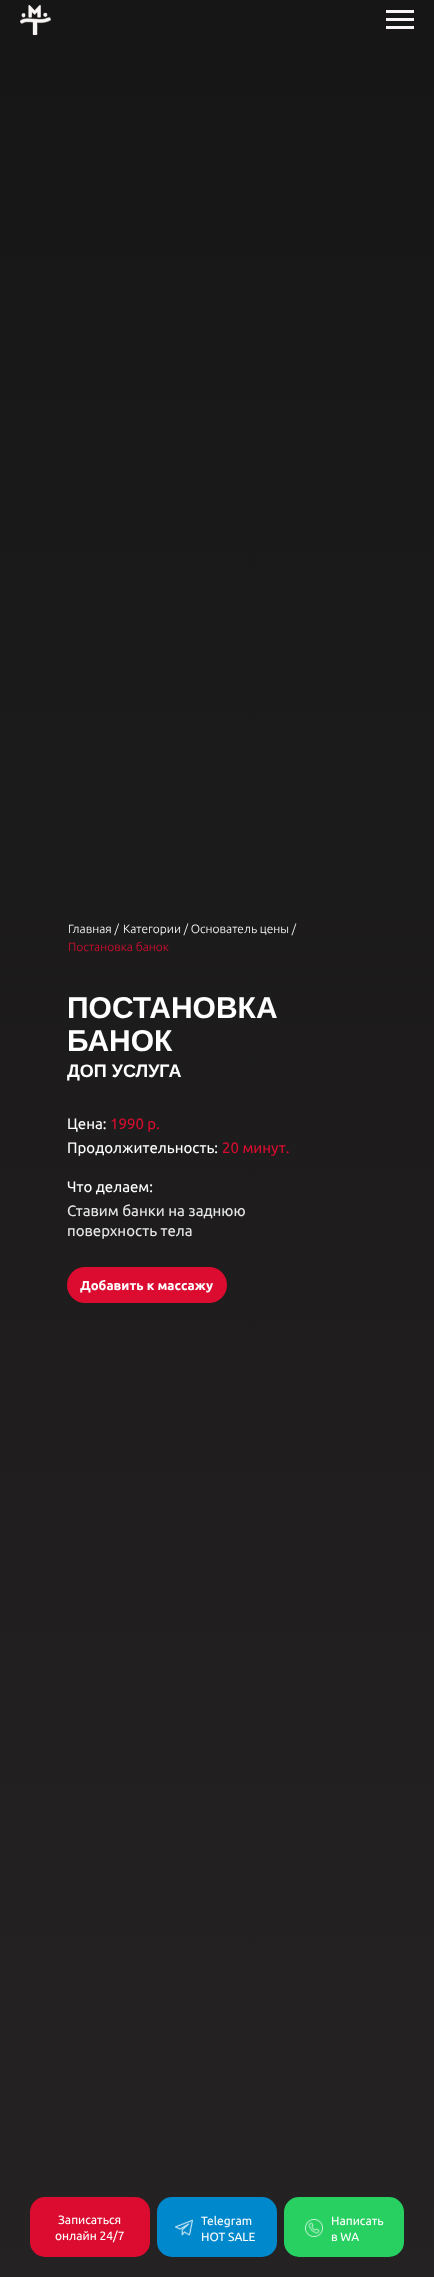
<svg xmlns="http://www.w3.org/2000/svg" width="434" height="2277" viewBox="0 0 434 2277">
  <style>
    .t1 { font: 300 12px Ubuntu; fill: #fff; }
    .t2 { font: 300 12px Ubuntu; fill: #db0c2f; }
    .t3 { font: bold 30px Liberation Sans; fill: #fff; }
    .t4 { font: bold 18px Liberation Sans; fill: #fff; }
    .t5 { font: 15px Ubuntu; fill: #fff; }
    .t6 { font: 15px Ubuntu; fill: #db0c2f; }
    .t7 { font: 15px Ubuntu; fill: #e9e8e8; }
    .t8 { font: bold 13px Ubuntu; fill: #fff; }
    .t9 { font: 12px Ubuntu; fill: #fff; }
  </style>
  <defs>
    <linearGradient id="g1" gradientUnits="userSpaceOnUse" x1="217" y1="0" x2="217" y2="2277"><stop offset="0" stop-color="#171617"/><stop offset="1" stop-color="#242223"/></linearGradient>
  </defs>
  <rect width="100%" height="100%" fill="#fff"/>
  <rect x="0" y="0" width="434" height="2277" fill="url(#g1)"/>
  <image x="20" y="5" width="31" height="30" href="images/1.png"/>
  <rect x="386" y="10" width="28" height="3" fill="#faf5f5"/>
  <rect x="386" y="18" width="28" height="3" fill="#faf5f5"/>
  <rect x="386" y="26" width="28" height="3" fill="#faf5f5"/>
  <text x="68" y="933" class="t1">Главная /</text>
  <text x="123" y="933" class="t1">Категории / Основатель цены /</text>
  <text x="68" y="951" class="t2">Постановка банок</text>
  <text x="67" y="1018" class="t3">ПОСТАНОВКА</text>
  <text x="67" y="1051" class="t3">БАНОК</text>
  <text x="67" y="1077" class="t4">ДОП УСЛУГА</text>
  <text x="67" y="1129" class="t5">Цена:</text>
  <text x="110" y="1129" class="t6">1990 р.</text>
  <text x="67" y="1153" class="t5">Продолжительность:</text>
  <text x="222" y="1153" class="t6">20 минут.</text>
  <text x="67" y="1192" class="t5">Что делаем:</text>
  <text x="67" y="1216" class="t7">Ставим банки на заднюю</text>
  <text x="67" y="1236" class="t7">поверхность тела</text>
  <rect x="67" y="1267" width="160" height="36" rx="18" fill="#db0c2f"/>
  <text x="80" y="1290" class="t8">Добавить к массажу</text>
  <rect x="30" y="2197" width="120" height="60" rx="15" fill="#db0c2f"/>
  <rect x="157" y="2197" width="120" height="60" rx="15" fill="#08c"/>
  <rect x="284" y="2197" width="120" height="60" rx="15" fill="#27d061"/>
  <text x="58" y="2224" class="t9">Записаться</text>
  <text x="55" y="2240" class="t9">онлайн 24/7</text>
  <image x="175" y="2219" width="18" height="17" href="images/2.png"/>
  <text x="201" y="2225" class="t9">Telegram</text>
  <text x="201" y="2241" class="t9">HOT SALE</text>
  <image x="305" y="2219" width="18" height="18" href="images/3.png"/>
  <text x="331" y="2225" class="t9">Написать</text>
  <text x="331" y="2241" class="t9">в WA</text>
</svg>
